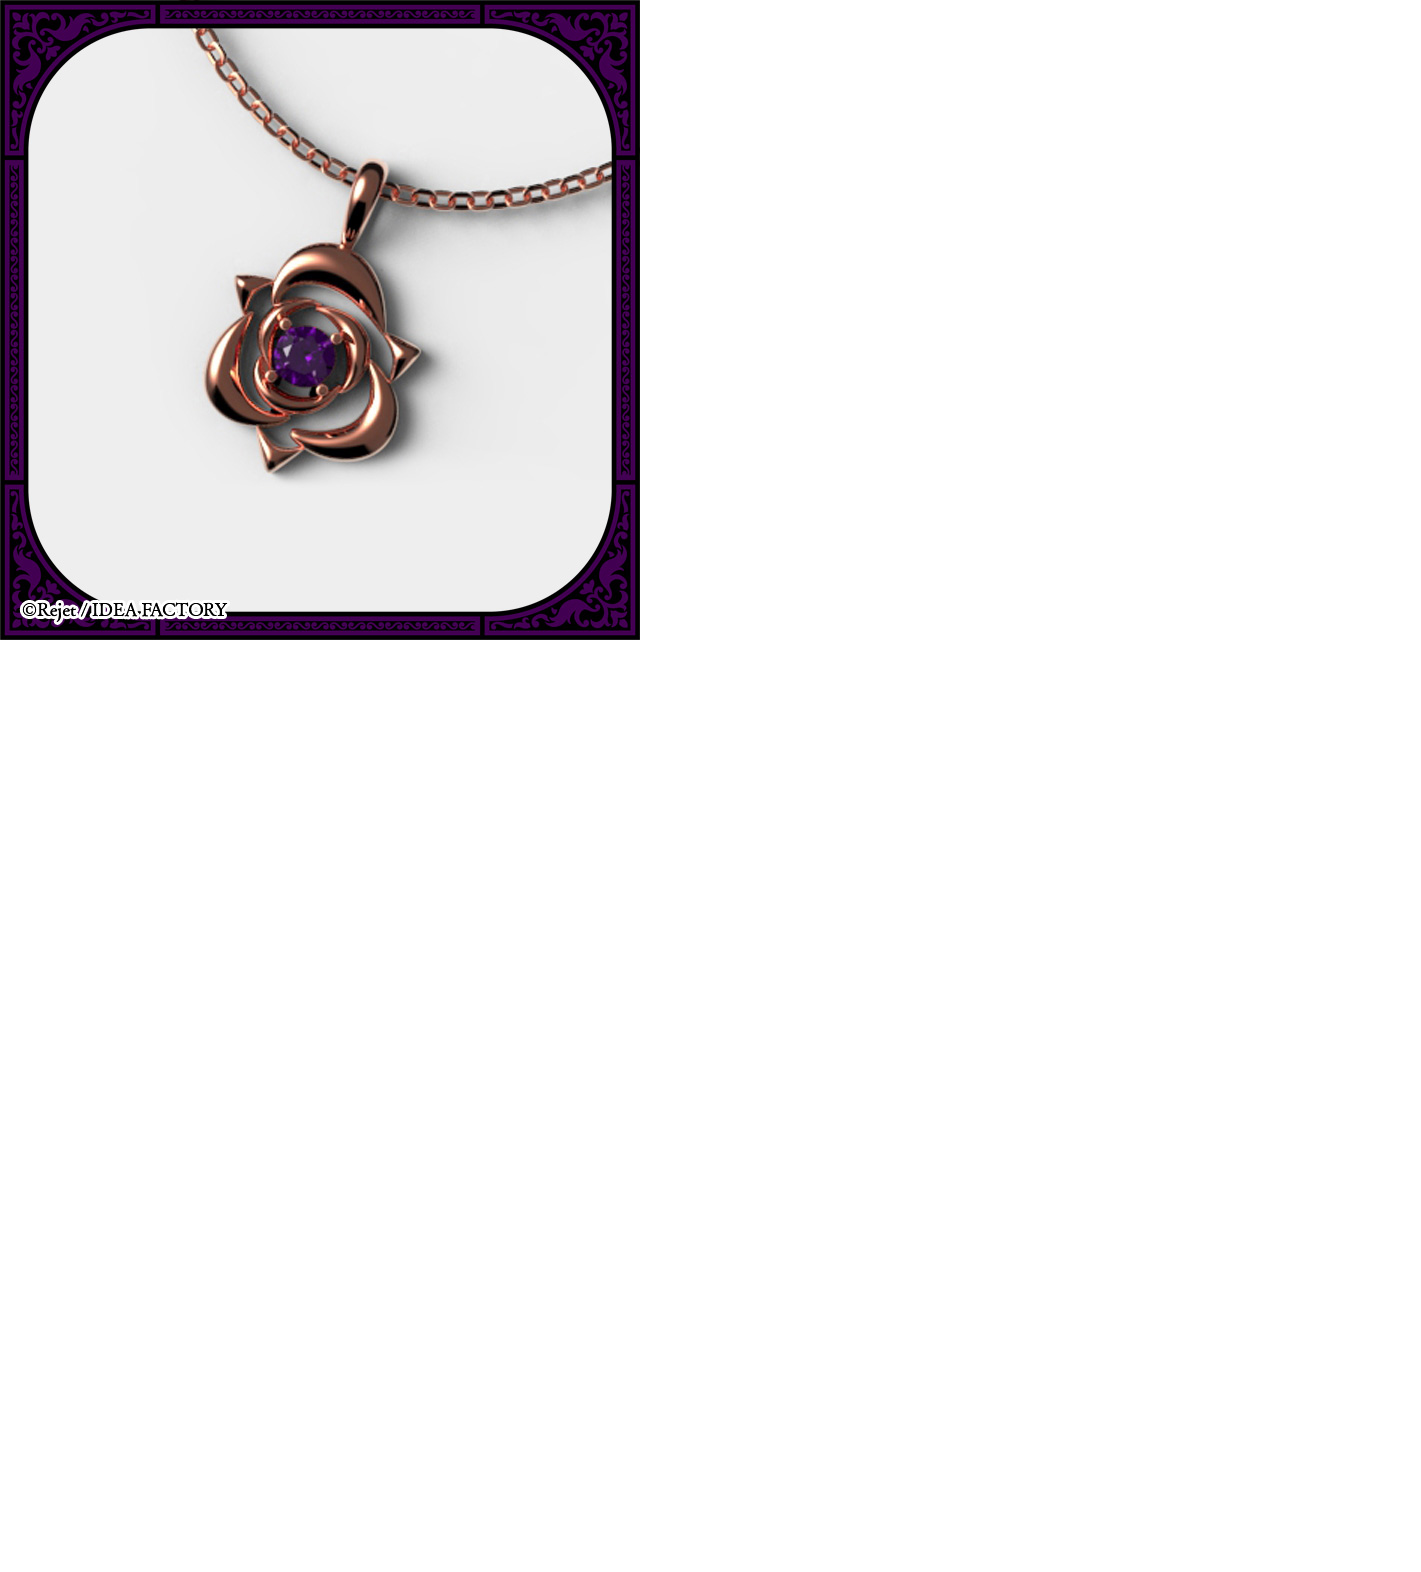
<svg xmlns="http://www.w3.org/2000/svg" width="1421" height="1572" viewBox="0 0 1421 1572">
  <rect width="100%" height="100%" fill="#fff"/>
  <image x="0" y="0" width="640" height="640" href="images/1.png"/>
</svg>
